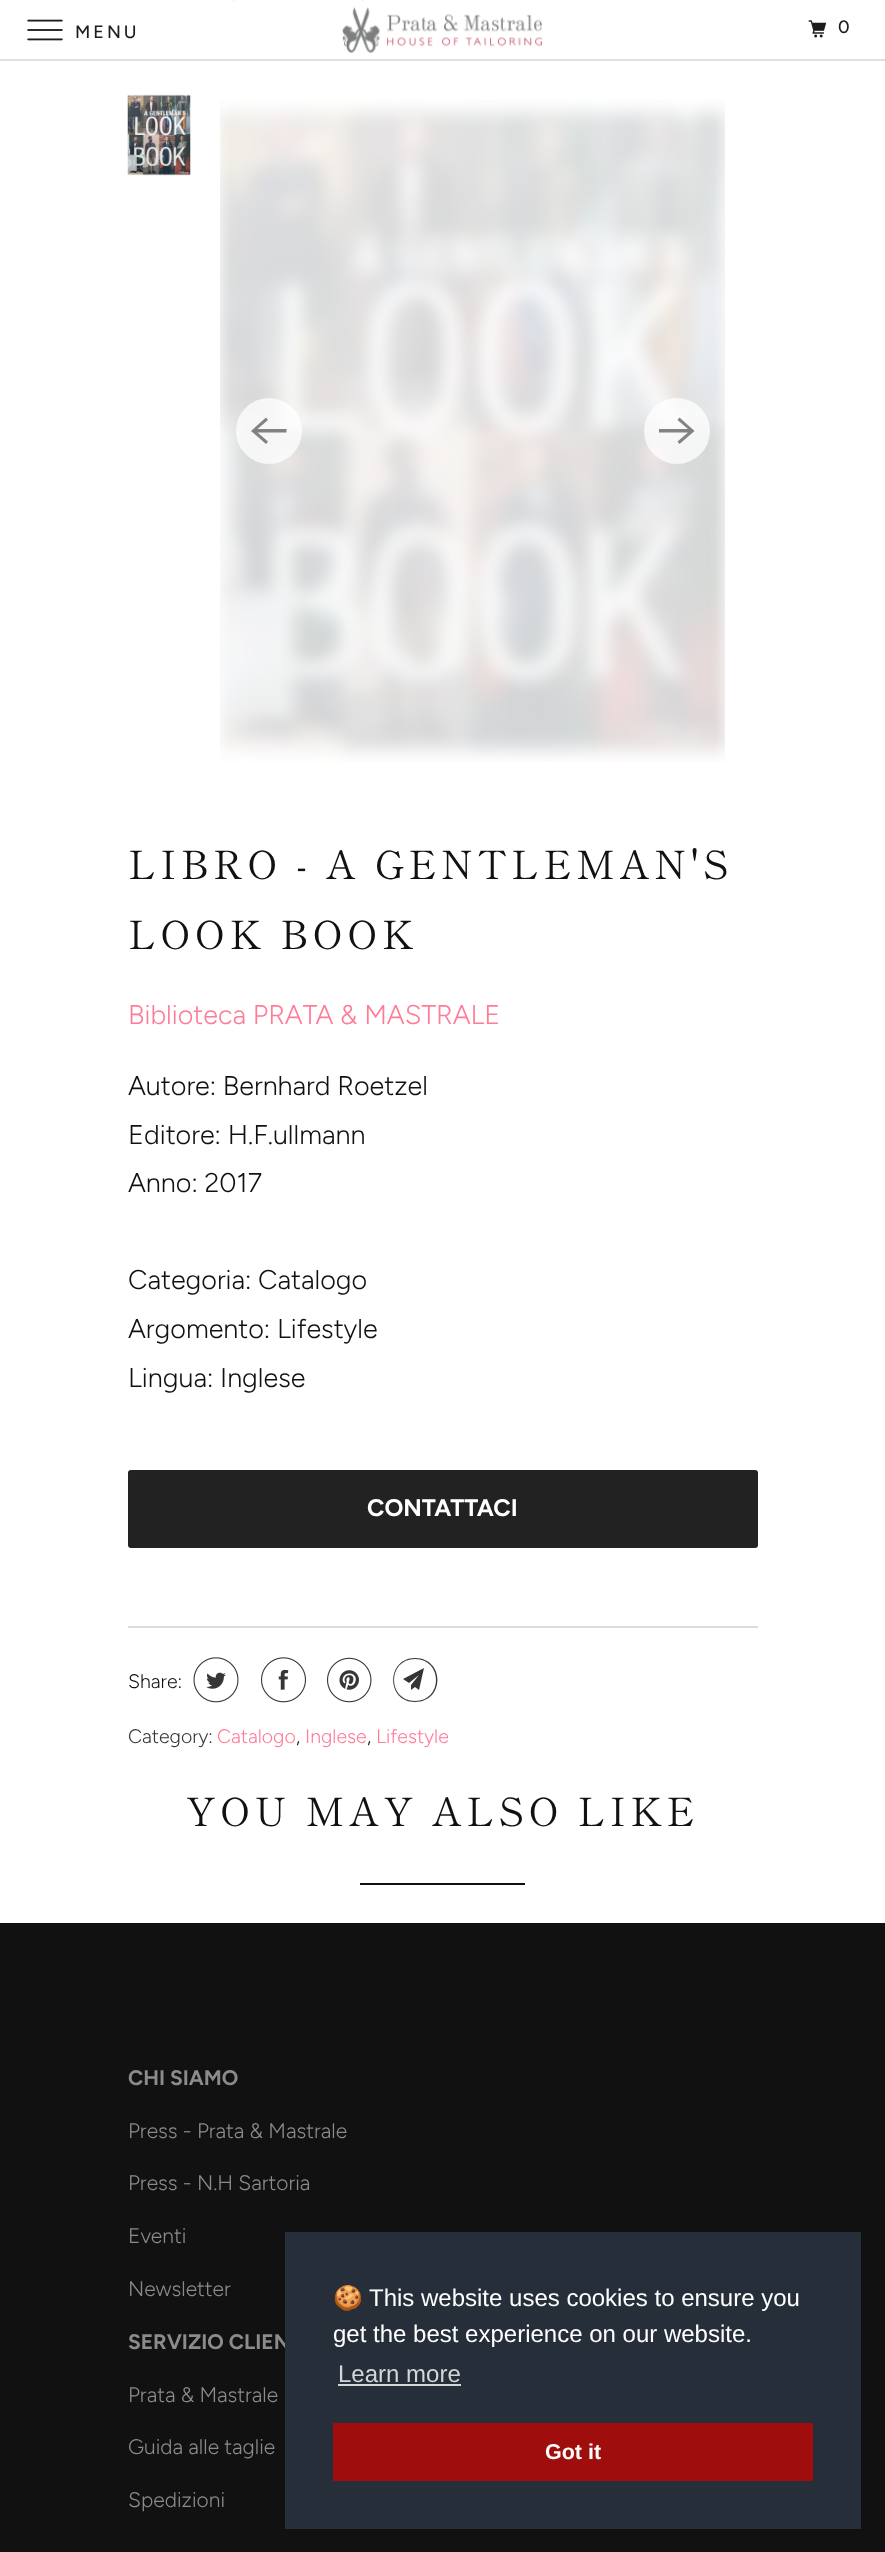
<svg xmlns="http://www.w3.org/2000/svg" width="885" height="2552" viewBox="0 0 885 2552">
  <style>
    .t1 { font: 500 18px Figtree; letter-spacing: 3px; fill: #1d1d1d; }
    .t2 { font: 39px Shippori Mincho; letter-spacing: 4.5px; fill: #111; }
    .t3 { font: 300 27px Figtree; fill: #ff7c97; }
    .t4 { font: 300 27px Figtree; fill: #111; }
    .t5 { font: bold 24px Figtree; fill: #fff; }
    .t6 { font: 300 19.5px Figtree; fill: #111; }
    .t7 { font: 300 19.5px Figtree; fill: #363636; }
    .t8 { font: 300 19.5px Figtree; fill: #ff7c97; }
    .t9 { font: bold 21px Figtree; fill: #8b8b8b; }
    .t10 { font: 300 21px Figtree; fill: #8b8b8b; }
    .t11 { font: 24px Noto Color Emoji; fill: #fff; }
    .t12 { font: 24px Liberation Sans; fill: #fff; }
    .t13 { font: 24px Liberation Sans; fill: #d3d5d7; }
    .t14 { font: bold 21.5px Liberation Sans; fill: #fff; }
  </style>
  <rect width="100%" height="100%" fill="#111"/>
  <rect x="0" y="59" width="885" height="2" fill="#dfdfdf"/>
  <rect x="0" y="0" width="885" height="59" fill="#fff"/>
  <image x="27" y="19" width="36" height="22" href="images/1.png"/>
  <text x="75" y="38" class="t1">MENU</text>
  <image x="342" y="7" width="201" height="46" href="images/2.png"/>
  <image x="808" y="20" width="19" height="18" href="images/3.png"/>
  <text x="838" y="33" class="t1">0</text>
  <rect x="0" y="61" width="885" height="1862" fill="#fff"/>
  <image x="232" y="0" width="3" height="3" href="images/4.png"/>
  <image x="361" y="0" width="3" height="3" href="images/4.png"/>
  <image x="127" y="94" width="64" height="82" href="images/5.png"/>
  <image x="220" y="100" width="505" height="662" href="images/6.png"/>
  <circle cx="269" cy="431" r="33" fill="#ffffffbf"/>
  <path d="M286.5 429H257.5L268 420L266 417.5L251 431L266 444L268 441.5L257.5 432.5H286.5Z" fill="#33333399"/>
  <circle cx="677" cy="431" r="33" fill="#ffffffbf"/>
  <path d="M659 432.5H688L677.5 441.5L679.5 444L694.5 431L679.5 417.5L677.5 420L688 429H659Z" fill="#33333399"/>
  <text x="128" y="879" class="t2">LIBRO - A GENTLEMAN'S</text>
  <text x="128" y="949" class="t2">LOOK BOOK</text>
  <text x="128" y="1024" class="t3">Biblioteca PRATA &amp; MASTRALE</text>
  <text x="128" y="1095" class="t4">Autore: Bernhard Roetzel</text>
  <text x="128" y="1144" class="t4">Editore: H.F.ullmann</text>
  <text x="128" y="1192" class="t4">Anno: 2017</text>
  <text x="128" y="1289" class="t4">Categoria: Catalogo</text>
  <text x="128" y="1338" class="t4">Argomento: Lifestyle</text>
  <text x="128" y="1387" class="t4">Lingua: Inglese</text>
  <rect x="128" y="1470" width="630" height="78" rx="3" fill="#222"/>
  <text x="367" y="1516" class="t5">CONTATTACI</text>
  <rect x="128" y="1626" width="630" height="2" fill="#ddd"/>
  <text x="128" y="1688" class="t6">Share:</text>
  <image x="193" y="1657" width="46" height="46" href="images/7.png"/>
  <image x="261" y="1657" width="45" height="46" href="images/8.png"/>
  <image x="327" y="1657" width="45" height="46" href="images/9.png"/>
  <path d="M419 1690L415 1687L411 1690V1685L419 1675L409 1683L403 1679L424 1668ZM415 1659C387 1659 387 1701 415 1701C443 1701 443 1659 415 1659ZM415 1702C386 1702 386 1658 415 1658C445 1658 445 1702 415 1702Z" fill="#363636"/>
  <text x="128" y="1743" class="t7">Category:</text>
  <text x="217" y="1743" class="t8">Catalogo</text>
  <text x="296" y="1743" class="t6">,</text>
  <text x="305" y="1743" class="t8">Inglese</text>
  <text x="367" y="1743" class="t6">,</text>
  <text x="376" y="1743" class="t8">Lifestyle</text>
  <text x="186" y="1826" class="t2">YOU MAY ALSO LIKE</text>
  <rect x="360" y="1883" width="165" height="2" fill="#111"/>
  <text x="128" y="2085" class="t9">CHI SIAMO</text>
  <text x="128" y="2138" class="t10">Press - Prata &amp; Mastrale</text>
  <text x="128" y="2190" class="t10">Press - N.H Sartoria</text>
  <text x="128" y="2243" class="t10">Eventi</text>
  <text x="128" y="2296" class="t10">Newsletter</text>
  <text x="128" y="2349" class="t9">SERVIZIO CLIEN</text>
  <text x="128" y="2402" class="t10">Prata &amp; Mastrale</text>
  <text x="128" y="2454" class="t10">Guida alle taglie</text>
  <text x="128" y="2507" class="t10">Spedizioni</text>
  <rect x="285" y="2232" width="576" height="297" fill="#252e39"/>
  <text x="333" y="2306" class="t11">🍪</text>
  <text x="369" y="2306" class="t12">This website uses cookies to ensure you</text>
  <text x="333" y="2342" class="t12">get the best experience on our website.</text>
  <text x="338" y="2382" class="t13">Learn more</text>
  <rect x="338" y="2384" width="123" height="2" fill="#d3d5d7"/>
  <rect x="333" y="2423" width="480" height="58" fill="#a00d0d"/>
  <text x="545" y="2459" class="t14">Got it</text>
</svg>
